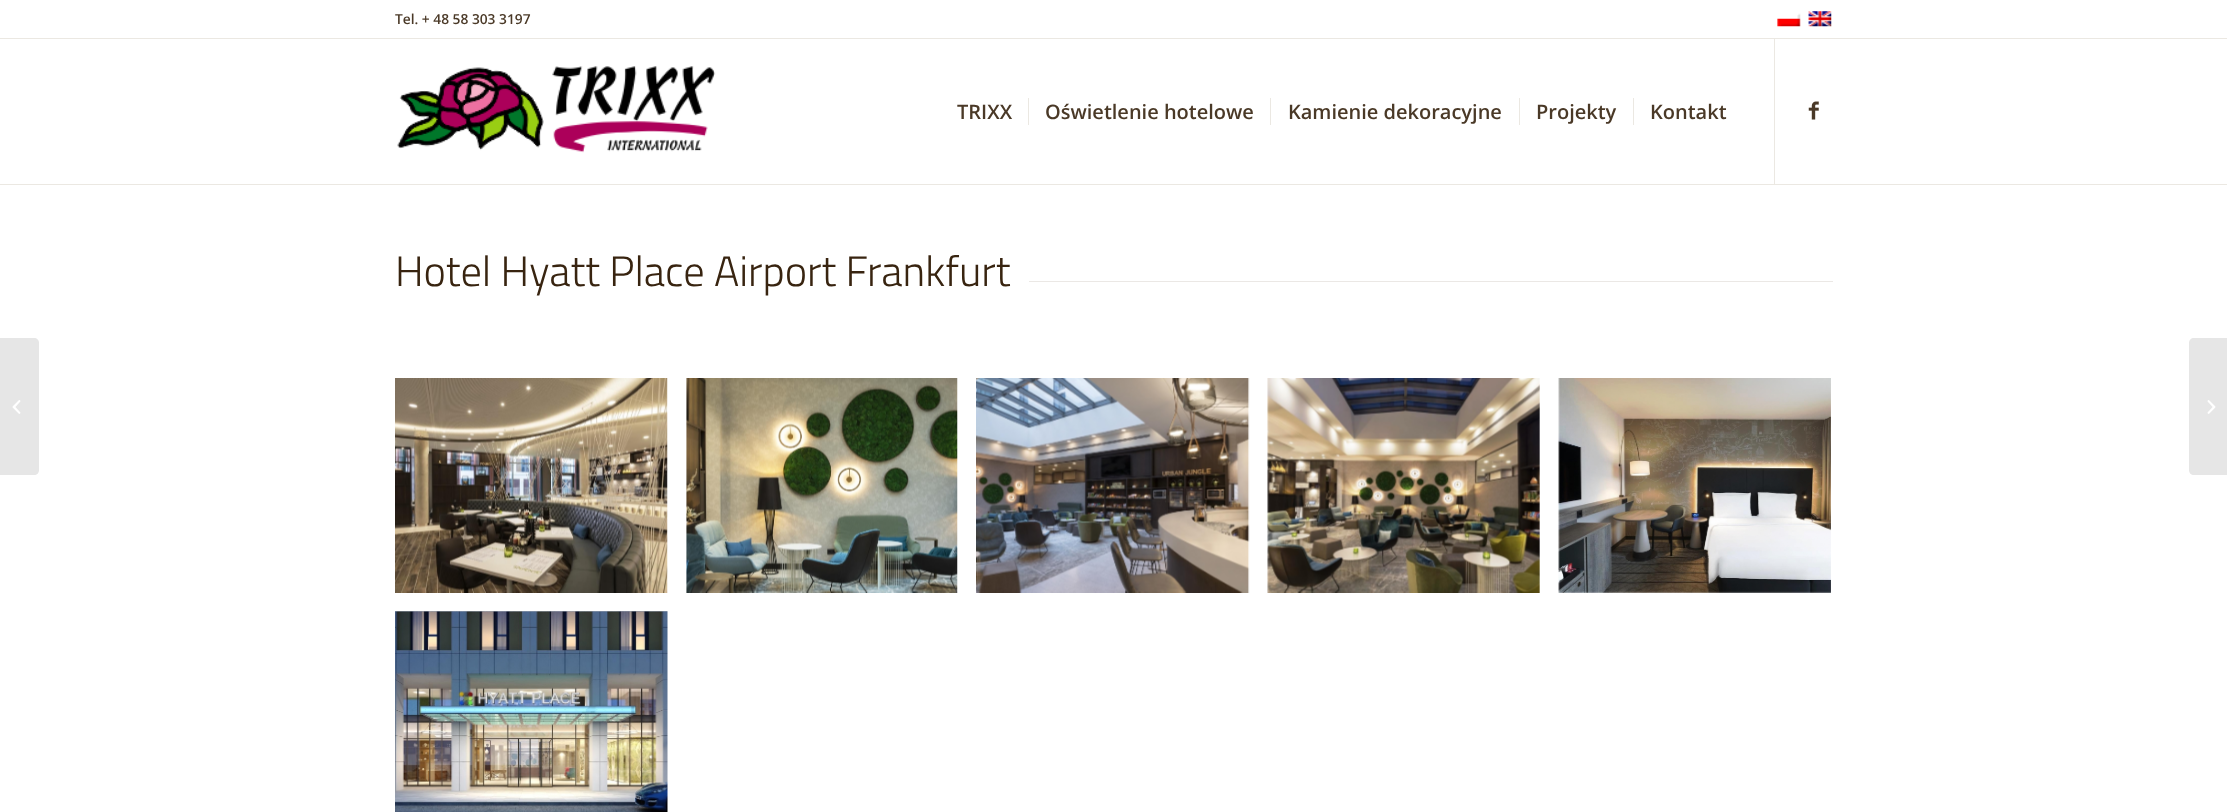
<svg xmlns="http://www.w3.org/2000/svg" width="2227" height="812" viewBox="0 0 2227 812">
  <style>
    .t1 { font: 600 13.75px Open Sans; fill: #4a3927; }
    .t2 { font: 600 20px Open Sans; fill: #4a3927; }
    .t3 { font: 300 42.5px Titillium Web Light; fill: #382410; }
  </style>
  <rect width="100%" height="100%" fill="#fff"/>
  <text x="395" y="24" class="t1">Tel. + 48 58 303 3197</text>
  <image x="1777" y="13" width="24" height="14" href="images/1.png"/>
  <image x="1808" y="11" width="24" height="16" href="images/2.png"/>
  <rect x="0" y="38" width="2227" height="1" fill="#ebe8e2"/>
  <rect x="0" y="184" width="2227" height="1" fill="#ebe8e2"/>
  <image x="397" y="66" width="319" height="87" href="images/3.png"/>
  <rect x="1774" y="39" width="1" height="145" fill="#ebe8e2"/>
  <text x="957" y="119" class="t2">TRIXX</text>
  <text x="1045" y="119" class="t2">Oświetlenie hotelowe</text>
  <rect x="1028" y="98" width="1" height="27" fill="#ebe8e2"/>
  <text x="1288" y="119" class="t2">Kamienie dekoracyjne</text>
  <rect x="1270" y="98" width="1" height="27" fill="#ebe8e2"/>
  <text x="1536" y="119" class="t2">Projekty</text>
  <rect x="1519" y="98" width="1" height="27" fill="#ebe8e2"/>
  <text x="1650" y="119" class="t2">Kontakt</text>
  <rect x="1633" y="98" width="1" height="27" fill="#ebe8e2"/>
  <image x="1808" y="101" width="11" height="19" href="images/4.png"/>
  <text x="395" y="286" class="t3">Hotel Hyatt Place Airport Frankfurt</text>
  <rect x="1029" y="281" width="804" height="1" fill="#ebe8e5"/>
  <image x="395" y="378" width="273" height="215" href="images/5.png"/>
  <image x="686" y="378" width="272" height="215" href="images/6.png"/>
  <image x="976" y="378" width="274" height="215" href="images/7.png"/>
  <image x="1267" y="378" width="273" height="215" href="images/8.png"/>
  <image x="1558" y="378" width="273" height="215" href="images/9.png"/>
  <image x="395" y="611" width="273" height="201" href="images/10.png"/>
  <path d="M0 338H34C37 338 39 340 39 343V470C39 473 37 475 34 475H0Z" fill="#e6e6e6"/>
  <image x="12" y="400" width="9" height="14" href="images/11.png"/>
  <path d="M2194 338H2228V475H2194C2191 475 2189 473 2189 470V343C2189 340 2191 338 2194 338Z" fill="#e6e6e6"/>
  <image x="2207" y="400" width="9" height="14" href="images/12.png"/>
</svg>
